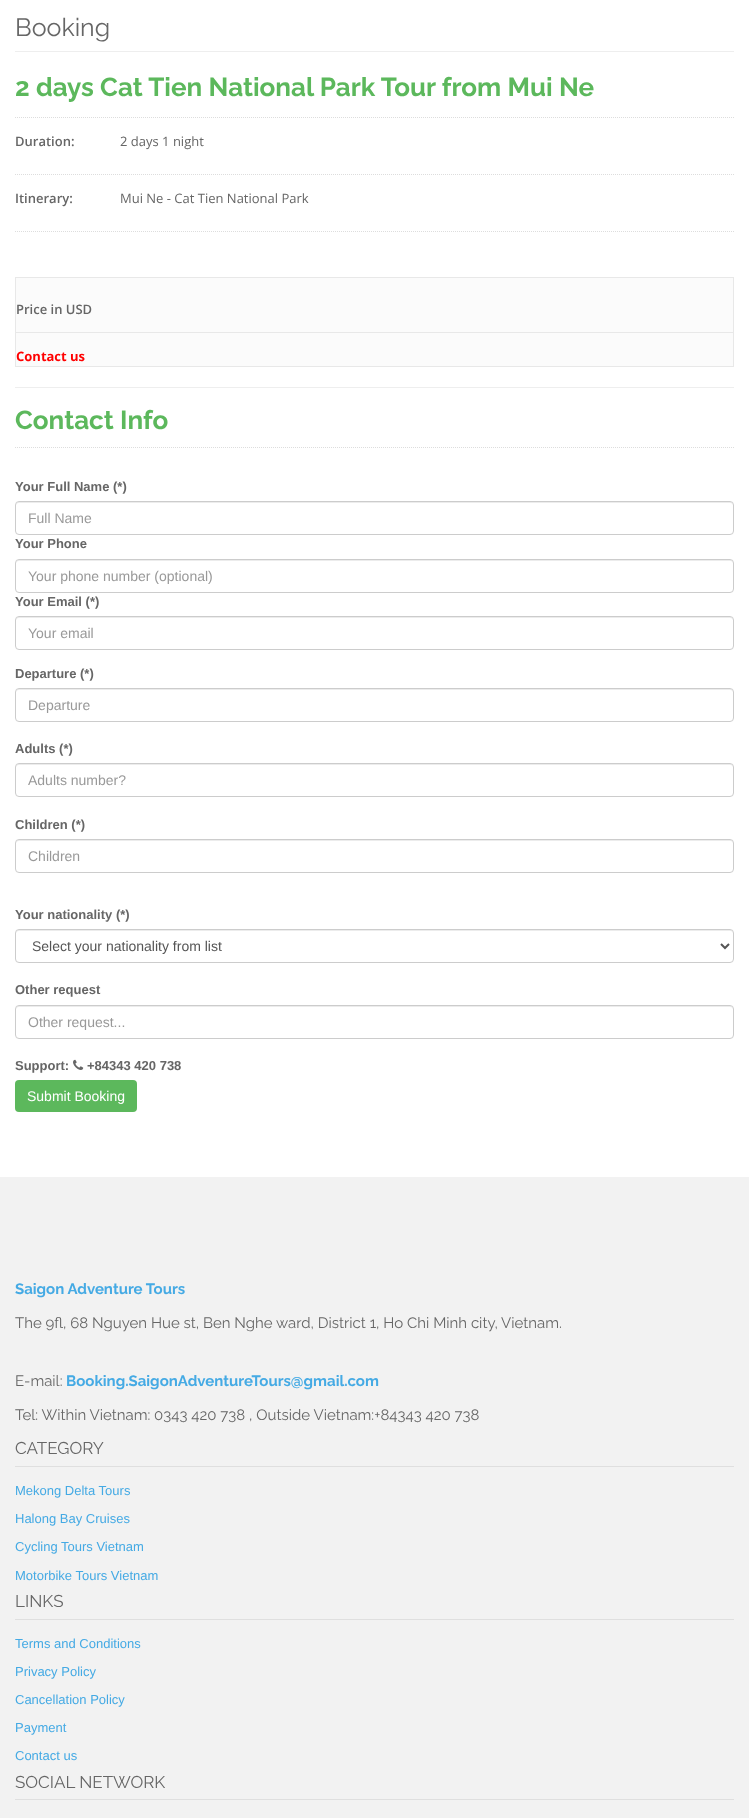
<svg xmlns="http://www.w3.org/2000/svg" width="749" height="1818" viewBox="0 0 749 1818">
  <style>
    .t1 { font: 25px Raleway; fill: #666; }
    .t2 { font: bold 26px Raleway; fill: #5cb85c; }
    .t3 { font: 600 13px Open Sans; fill: #666; }
    .t4 { font: 13px Open Sans; fill: #666; }
    .t5 { font: bold 13px Open Sans; fill: #f00; }
    .t6 { font: bold 13px Liberation Sans; fill: #666; }
    .t7 { font: 14px Liberation Sans; fill: #999; }
    .t8 { font: 14px Liberation Sans; fill: #555; }
    .t9 { font: 14px Liberation Sans; fill: #fff; }
    .t10 { font: bold 15px Raleway; fill: #45aae4; }
    .t11 { font: 15px Raleway; fill: #666; }
    .t12 { font: 17px Raleway; fill: #666; }
    .t13 { font: 13px Liberation Sans; fill: #45aae4; }
  </style>
  <rect width="100%" height="100%" fill="#fff"/>
  <rect x="15" y="51" width="719" height="1" fill="#eee"/>
  <text x="15" y="36" class="t1">Booking</text>
  <path d="M15 117.5H734" fill="none" stroke="#ddd" stroke-dasharray="1 1"/>
  <text x="15" y="96" class="t2">2 days Cat Tien National Park Tour from Mui Ne</text>
  <path d="M15 174.5H734" fill="none" stroke="#ddd" stroke-dasharray="1 1"/>
  <text x="15" y="146" class="t3">Duration:</text>
  <text x="120" y="146" class="t4">2 days 1 night</text>
  <path d="M15 231.5H734" fill="none" stroke="#ddd" stroke-dasharray="1 1"/>
  <text x="15" y="203" class="t3">Itinerary:</text>
  <text x="120" y="203" class="t4">Mui Ne - Cat Tien National Park</text>
  <rect x="15.5" y="277.5" width="718" height="89" fill="#fbfbfb" stroke="#e8e8e8"/>
  <text x="16" y="314" class="t3">Price in USD</text>
  <rect x="16" y="332" width="717" height="1" fill="#e8e8e8"/>
  <text x="16" y="361" class="t5">Contact us</text>
  <rect x="15" y="387" width="719" height="1" fill="#eee"/>
  <path d="M15 447.5H734" fill="none" stroke="#ddd" stroke-dasharray="1 1"/>
  <text x="15" y="429" class="t2">Contact Info</text>
  <text x="15" y="491" class="t6">Your Full Name (*)</text>
  <path d="M19 503H730C732 503 733 504 733 506C733 504 732 502 730 502H19C17 502 16 504 16 506C16 504 17 503 19 503Z" fill="#ececec"/>
  <rect x="15.5" y="501.5" width="718" height="33" rx="3.5" fill="none" stroke="#ccc"/>
  <text x="28" y="523" class="t7">Full Name</text>
  <text x="15" y="548" class="t6">Your Phone</text>
  <path d="M19 561H730C732 561 733 562 733 564C733 562 732 560 730 560H19C17 560 16 562 16 564C16 562 17 561 19 561Z" fill="#ececec"/>
  <rect x="15.5" y="559.5" width="718" height="33" rx="3.5" fill="none" stroke="#ccc"/>
  <text x="28" y="581" class="t7">Your phone number (optional)</text>
  <text x="15" y="606" class="t6">Your Email (*)</text>
  <path d="M19 618H730C732 618 733 619 733 621C733 619 732 617 730 617H19C17 617 16 619 16 621C16 619 17 618 19 618Z" fill="#ececec"/>
  <rect x="15.5" y="616.5" width="718" height="33" rx="3.5" fill="none" stroke="#ccc"/>
  <text x="28" y="638" class="t7">Your email</text>
  <text x="15" y="678" class="t6">Departure (*)</text>
  <path d="M19 690H730C732 690 733 691 733 693C733 691 732 689 730 689H19C17 689 16 691 16 693C16 691 17 690 19 690Z" fill="#ececec"/>
  <rect x="15.5" y="688.5" width="718" height="33" rx="3.5" fill="none" stroke="#ccc"/>
  <text x="28" y="710" class="t7">Departure</text>
  <text x="15" y="753" class="t6">Adults (*)</text>
  <path d="M19 765H730C732 765 733 766 733 768C733 766 732 764 730 764H19C17 764 16 766 16 768C16 766 17 765 19 765Z" fill="#ececec"/>
  <rect x="15.5" y="763.5" width="718" height="33" rx="3.5" fill="none" stroke="#ccc"/>
  <text x="28" y="785" class="t7">Adults number?</text>
  <text x="15" y="829" class="t6">Children (*)</text>
  <path d="M19 841H730C732 841 733 842 733 844C733 842 732 840 730 840H19C17 840 16 842 16 844C16 842 17 841 19 841Z" fill="#ececec"/>
  <rect x="15.5" y="839.5" width="718" height="33" rx="3.5" fill="none" stroke="#ccc"/>
  <text x="28" y="861" class="t7">Children</text>
  <text x="15" y="919" class="t6">Your nationality (*)</text>
  <path d="M19 931H730C732 931 733 932 733 934C733 932 732 930 730 930H19C17 930 16 932 16 934C16 932 17 931 19 931Z" fill="#ececec"/>
  <rect x="15.5" y="929.5" width="718" height="33" rx="3.5" fill="none" stroke="#ccc"/>
  <path d="M721 944L725 948L729 944" fill="none" stroke="#555" stroke-width="2"/>
  <text x="32" y="951" class="t8">Select your nationality from list</text>
  <text x="15" y="994" class="t6">Other request</text>
  <path d="M19 1007H730C732 1007 733 1008 733 1010C733 1008 732 1006 730 1006H19C17 1006 16 1008 16 1010C16 1008 17 1007 19 1007Z" fill="#ececec"/>
  <rect x="15.5" y="1005.5" width="718" height="33" rx="3.5" fill="none" stroke="#ccc"/>
  <text x="28" y="1027" class="t7">Other request...</text>
  <text x="15" y="1070" class="t6">Support:</text>
  <image x="73" y="1059" width="11" height="11" href="images/1.png"/>
  <text x="87" y="1070" class="t6">+84343 420 738</text>
  <rect x="15" y="1080" width="122" height="32" rx="4" fill="#5cb85c"/>
  <text x="27" y="1101" class="t9">Submit Booking</text>
  <rect x="0" y="1177" width="749" height="641" fill="#f2f2f2"/>
  <text x="15" y="1294" class="t10">Saigon Adventure Tours</text>
  <text x="15" y="1328" class="t11">The 9fl, 68 Nguyen Hue st, Ben Nghe ward, District 1, Ho Chi Minh city, Vietnam.</text>
  <text x="15" y="1386" class="t11">E-mail:</text>
  <text x="66" y="1386" class="t10">Booking.SaigonAdventureTours@gmail.com</text>
  <text x="15" y="1420" class="t11">Tel: Within Vietnam: 0343 420 738 , Outside Vietnam:+84343 420 738</text>
  <rect x="15" y="1466" width="719" height="1" fill="#dfdfdf"/>
  <text x="15" y="1454" class="t12">CATEGORY</text>
  <text x="15" y="1495" class="t13">Mekong Delta Tours</text>
  <text x="15" y="1523" class="t13">Halong Bay Cruises</text>
  <text x="15" y="1551" class="t13">Cycling Tours Vietnam</text>
  <text x="15" y="1580" class="t13">Motorbike Tours Vietnam</text>
  <rect x="15" y="1619" width="719" height="1" fill="#dfdfdf"/>
  <text x="15" y="1607" class="t12">LINKS</text>
  <text x="15" y="1648" class="t13">Terms and Conditions</text>
  <text x="15" y="1676" class="t13">Privacy Policy</text>
  <text x="15" y="1704" class="t13">Cancellation Policy</text>
  <text x="15" y="1732" class="t13">Payment</text>
  <text x="15" y="1760" class="t13">Contact us</text>
  <rect x="15" y="1799" width="719" height="1" fill="#dfdfdf"/>
  <text x="15" y="1788" class="t12">SOCIAL NETWORK</text>
</svg>
